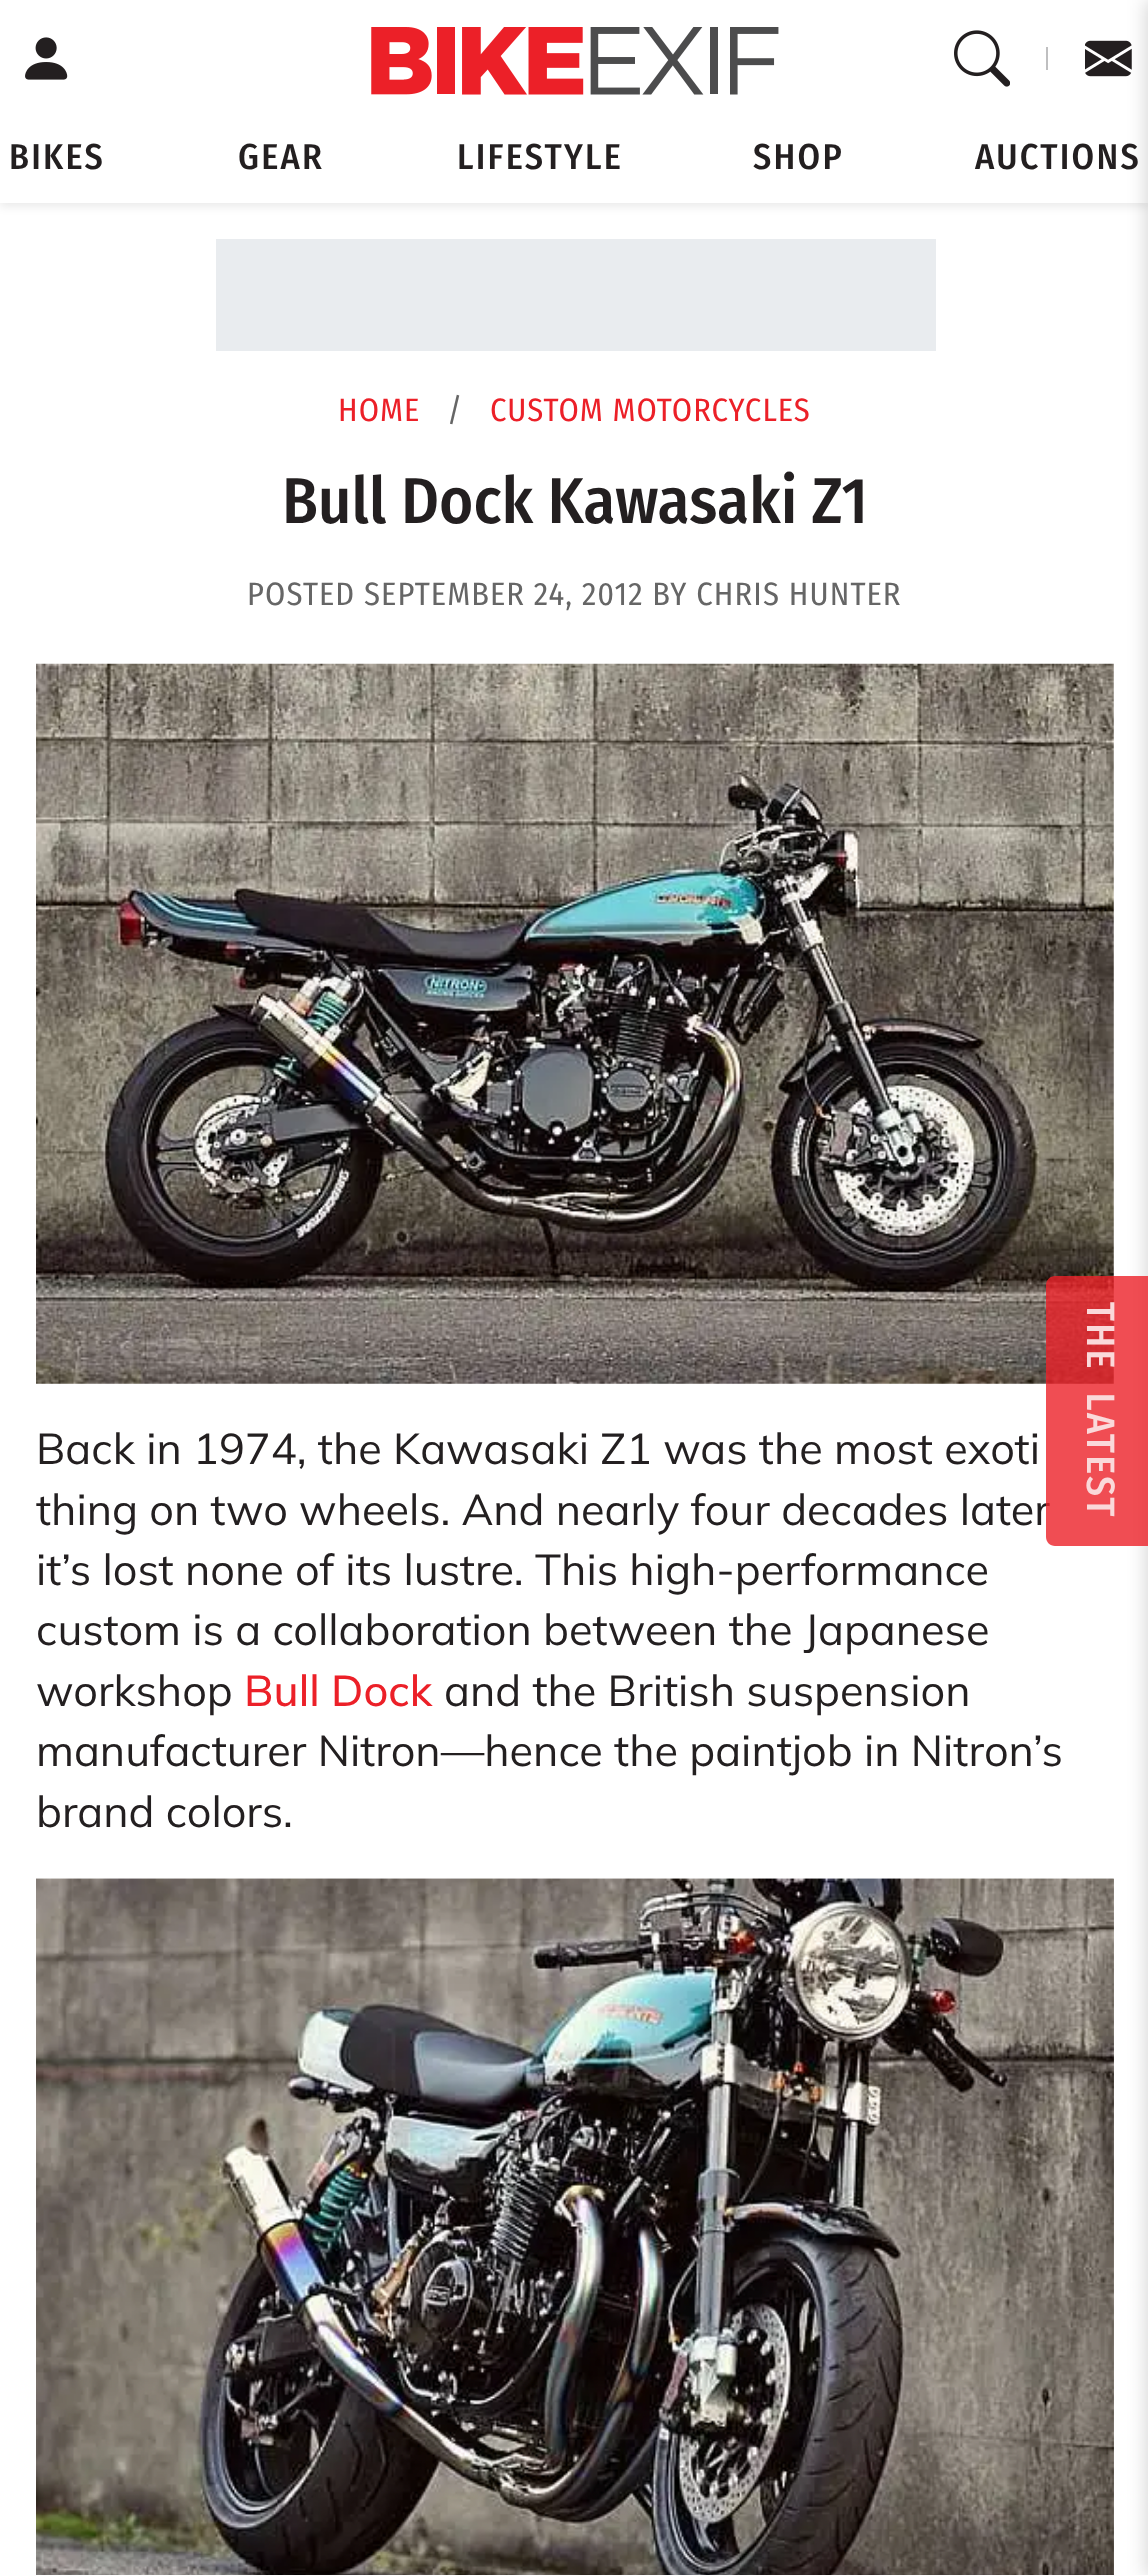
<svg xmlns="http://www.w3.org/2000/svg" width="1148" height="2575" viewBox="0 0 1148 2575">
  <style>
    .t1 { font: 500 36px Fira Sans Condensed; letter-spacing: 2.25px; fill: #231f20; }
    .t2 { font: 32.4px Fira Sans Condensed; letter-spacing: 1.1px; fill: #ec2028; }
    .t3 { font: 32.4px Fira Sans Condensed; letter-spacing: 1.1px; fill: #666; }
    .t4 { font: 500 64.75px Fira Sans Condensed; fill: #231f20; }
    .t5 { font: 200 43.2px Mulish; fill: #231f20; }
    .t6 { font: 200 43.2px 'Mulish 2'; fill: #ec2028; }
    .t7 { font: 500 39.5px Fira Sans Condensed; letter-spacing: 2.25px; fill: #fad9da; }
  </style>
  <rect width="100%" height="100%" fill="#fff"/>
  <rect x="0" y="5" width="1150" height="202" fill="#00000014" filter="blur(4.5px)"/>
  <rect x="0" y="0" width="1148" height="203" fill="#fff"/>
  <image x="1085" y="40" width="47" height="37" href="images/4.png"/>
  <rect x="1145" y="0" width="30" height="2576" fill="#00000026" filter="blur(9px)"/>
  <image x="25" y="37" width="43" height="43" href="images/1.png"/>
  <image x="371" y="27" width="408" height="68" href="images/2.png"/>
  <image x="954" y="30" width="56" height="57" href="images/3.png"/>
  <rect x="1046" y="47" width="2" height="23" fill="#bfbfc0"/>
  <text x="9" y="169" class="t1">BIKES</text>
  <text x="238" y="169" class="t1">GEAR</text>
  <text x="457" y="169" class="t1">LIFESTYLE</text>
  <text x="753" y="169" class="t1">SHOP</text>
  <text x="975" y="169" class="t1">AUCTIONS</text>
  <rect x="216" y="239" width="720" height="112" fill="#e9ecef"/>
  <text x="338" y="421" class="t2">HOME</text>
  <text x="447" y="421" class="t3">/</text>
  <text x="490" y="421" class="t2">CUSTOM MOTORCYCLES</text>
  <text x="282" y="523" class="t4">Bull Dock Kawasaki Z1</text>
  <text x="247" y="605" class="t3">POSTED SEPTEMBER 24, 2012 BY CHRIS HUNTER</text>
  <image x="36" y="663" width="1078" height="721" href="images/5.png"/>
  <text x="36" y="1464" class="t5">Back in 1974, the Kawasaki Z1 was the most exoti</text>
  <text x="36" y="1525" class="t5">thing on two wheels. And nearly four decades later</text>
  <text x="36" y="1585" class="t5">it’s lost none of its lustre. This high-performance</text>
  <text x="36" y="1645" class="t5">custom is a collaboration between the Japanese</text>
  <text x="36" y="1706" class="t5">workshop</text>
  <text x="244" y="1706" class="t6">Bull Dock</text>
  <text x="444" y="1706" class="t5">and the British suspension</text>
  <text x="36" y="1766" class="t5">manufacturer Nitron—hence the paintjob in Nitron’s</text>
  <text x="36" y="1827" class="t5">brand colors.</text>
  <image x="36" y="1878" width="1078" height="697" href="images/6.png"/>
  <image x="36" y="1878" width="1078" height="697" href="images/7.png"/>
  <path d="M1055 1276H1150V1546H1055C1050 1546 1046 1542 1046 1537V1285C1046 1280 1050 1276 1055 1276Z" fill="#ec2028cc"/>
  <text x="1087" y="1302" transform="rotate(90 1087 1302)" class="t7" xml:space="preserve">THE  LATEST</text>
</svg>
